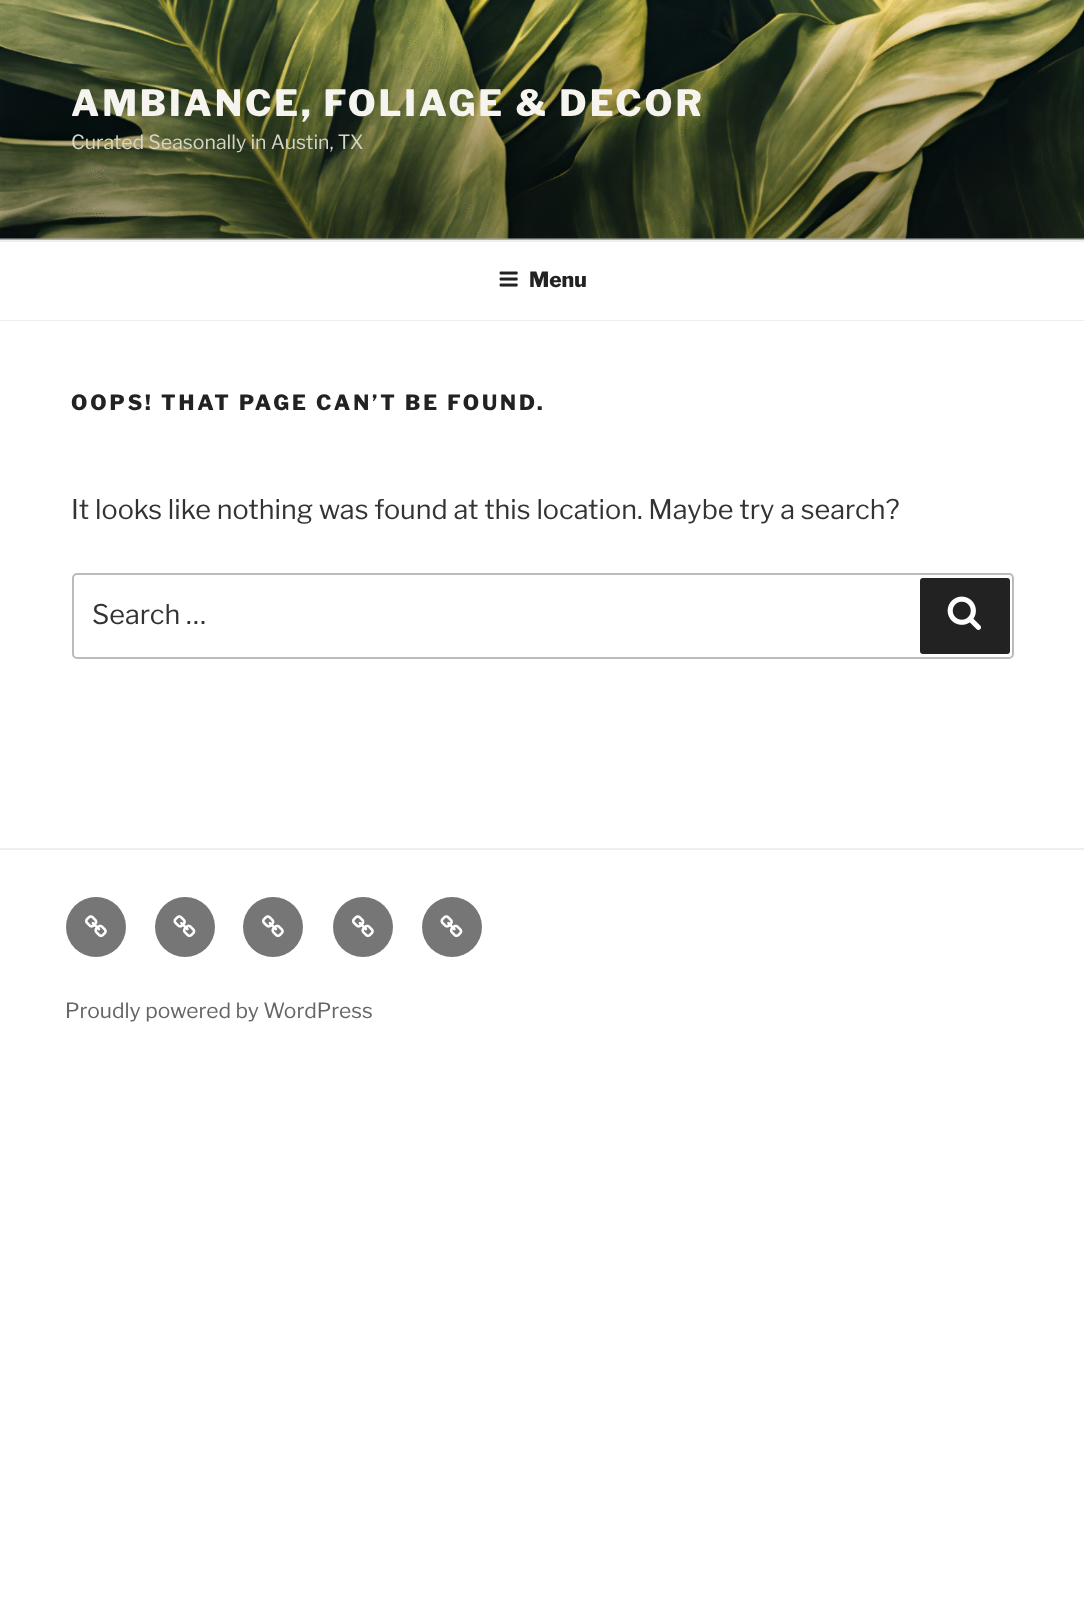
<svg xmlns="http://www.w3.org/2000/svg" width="1084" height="1611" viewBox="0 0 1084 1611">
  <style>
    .t1 { font: 100 36px Libre Franklin; letter-spacing: 2.9px; fill: #f6f4ef; }
    .t2 { font: 100 19.5px 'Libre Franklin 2'; fill: #d5d4c9; }
    .t3 { font: 100 21px Libre Franklin; fill: #222; }
    .t4 { font: 100 21px Libre Franklin; letter-spacing: 2.95px; fill: #222; }
    .t5 { font: 100 27px 'Libre Franklin 2'; fill: #333; }
    .t6 { font: 100 21px 'Libre Franklin 2'; fill: #666; }
  </style>
  <defs>
    <linearGradient id="g1" gradientUnits="userSpaceOnUse" x1="542" y1="0" x2="542" y2="240"><stop offset="0" stop-color="#000" stop-opacity="0"/><stop offset="0.75" stop-color="#000" stop-opacity="0.3"/><stop offset="1" stop-color="#000" stop-opacity="0.3"/></linearGradient>
  </defs>
  <rect width="100%" height="100%" fill="#fff"/>
  <rect x="0" y="238" width="1084" height="2" fill="#fafafa"/>
  <image x="0" y="0" width="1084" height="239" href="images/1.png"/>
  <rect x="0" y="13" width="1084" height="227" fill="url(#g1)"/>
  <text x="71" y="116" class="t1">AMBIANCE, FOLIAGE &amp; DECOR</text>
  <text x="71" y="149" class="t2">Curated Seasonally in Austin, TX</text>
  <rect x="0" y="240" width="1084" height="2" fill="#eee"/>
  <rect x="0" y="320" width="1084" height="1" fill="#eee"/>
  <image x="499" y="271" width="19" height="16" href="images/2.png"/>
  <text x="529" y="287" class="t3">Menu</text>
  <text x="71" y="410" class="t4">OOPS! THAT PAGE CAN’T BE FOUND.</text>
  <text x="71" y="519" class="t5">It looks like nothing was found at this location. Maybe try a search?</text>
  <rect x="73" y="574" width="940" height="84" rx="4" fill="none" stroke="#bbb" stroke-width="2"/>
  <text x="92" y="624" class="t5">Search …</text>
  <rect x="920" y="578" width="90" height="76" rx="3" fill="#222"/>
  <image x="947" y="596" width="34" height="34" href="images/3.png"/>
  <rect x="0" y="848" width="1084" height="2" fill="#eee"/>
  <circle cx="96" cy="927" r="30" fill="#767676"/>
  <image x="85" y="915" width="22" height="22" href="images/4.png"/>
  <circle cx="185" cy="927" r="30" fill="#767676"/>
  <image x="173" y="915" width="23" height="23" href="images/5.png"/>
  <circle cx="273" cy="927" r="30" fill="#767676"/>
  <image x="262" y="915" width="22" height="22" href="images/4.png"/>
  <circle cx="363" cy="927" r="30" fill="#767676"/>
  <image x="352" y="915" width="22" height="22" href="images/4.png"/>
  <circle cx="452" cy="927" r="30" fill="#767676"/>
  <image x="440" y="915" width="23" height="23" href="images/5.png"/>
  <text x="65" y="1018" class="t6">Proudly powered by WordPress</text>
</svg>
